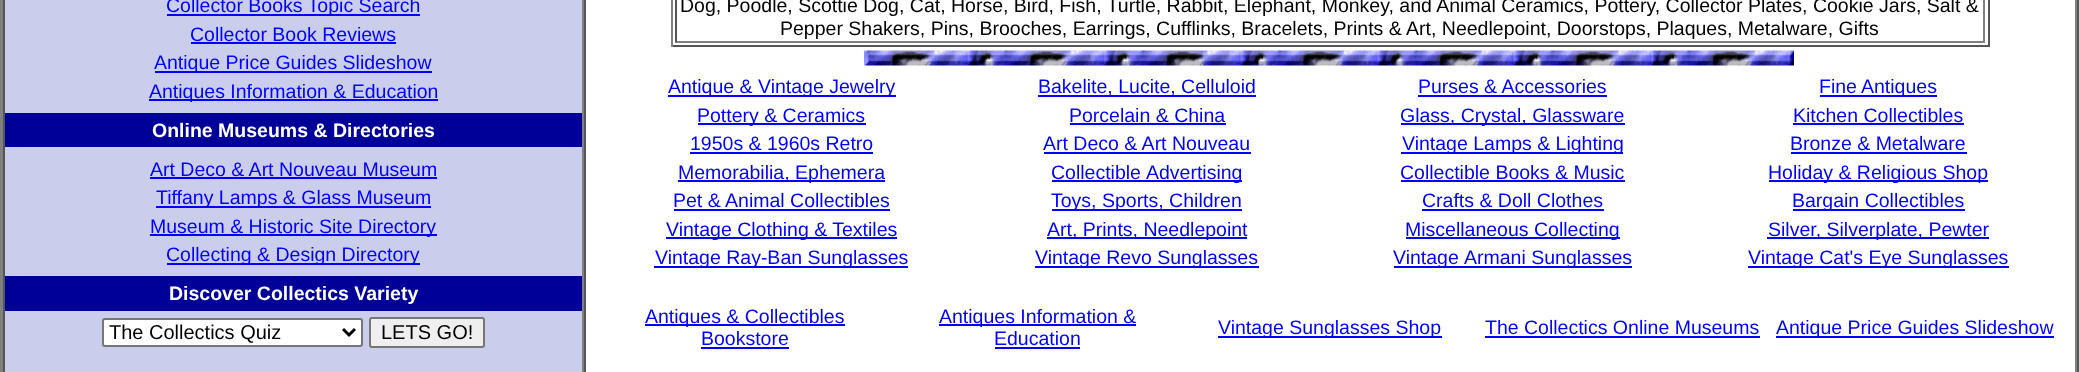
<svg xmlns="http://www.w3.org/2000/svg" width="2079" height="372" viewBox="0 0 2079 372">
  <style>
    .t1 { font: 19.5px Liberation Sans; fill: #00f; }
    .t2 { font: bold 19.5px Liberation Sans; fill: #fff; }
    .t3 { font: 20px Liberation Sans; fill: #000; }
    .t4 { font: 19.5px Liberation Sans; fill: #000; }
  </style>
  <rect width="100%" height="100%" fill="#fff"/>
  <path d="M2079-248V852L2076 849V-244Z" fill="#555"/>
  <path d="M0 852V-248L3-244V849Z" fill="#808080"/>
  <rect x="5" y="0" width="577" height="372" fill="#cacdec"/>
  <rect x="582" y="0" width="2" height="372" fill="#808080"/>
  <rect x="3" y="0" width="2" height="372" fill="#555"/>
  <rect x="167" y="14" width="253" height="2" fill="#00f"/>
  <text x="166" y="12" class="t1">Collector Books Topic Search</text>
  <text x="190" y="41" class="t1">Collector Book Reviews</text>
  <rect x="191" y="42" width="205" height="2" fill="#00f"/>
  <rect x="155" y="71" width="277" height="2" fill="#00f"/>
  <text x="154" y="69" class="t1">Antique Price Guides Slideshow</text>
  <rect x="149" y="99" width="289" height="2" fill="#00f"/>
  <text x="149" y="98" class="t1">Antiques Information &amp; Education</text>
  <rect x="5" y="113" width="577" height="34" fill="#009"/>
  <text x="152" y="137" class="t2">Online Museums &amp; Directories</text>
  <text x="150" y="176" class="t1">Art Deco &amp; Art Nouveau Museum</text>
  <rect x="150" y="177" width="287" height="2" fill="#00f"/>
  <rect x="156" y="206" width="275" height="2" fill="#00f"/>
  <text x="156" y="204" class="t1">Tiffany Lamps &amp; Glass Museum</text>
  <rect x="150" y="234" width="287" height="2" fill="#00f"/>
  <text x="150" y="233" class="t1">Museum &amp; Historic Site Directory</text>
  <rect x="167" y="263" width="253" height="2" fill="#00f"/>
  <text x="166" y="261" class="t1">Collecting &amp; Design Directory</text>
  <rect x="5" y="276" width="577" height="35" fill="#009"/>
  <text x="169" y="300" class="t2">Discover Collectics Variety</text>
  <rect x="103" y="319" width="259" height="27" rx="2" fill="#fff" stroke="#767676" stroke-width="2"/>
  <path d="M343 329L349 335L355 329" fill="none" stroke="#000" stroke-width="3"/>
  <text x="109" y="339" class="t3">The Collectics Quiz</text>
  <rect x="370" y="318" width="114" height="29" rx="2" fill="#efefef" stroke="#767676" stroke-width="2"/>
  <text x="381" y="339" class="t3">LETS GO!</text>
  <rect x="2075" y="0" width="2" height="372" fill="#808080"/>
  <rect x="584" y="0" width="2" height="372" fill="#555"/>
  <rect x="1988" y="0" width="2" height="47" fill="#555"/>
  <rect x="671" y="45" width="1318" height="2" fill="#555"/>
  <rect x="671" y="0" width="2" height="47" fill="#808080"/>
  <rect x="1983" y="0" width="2" height="42" fill="#808080"/>
  <rect x="675" y="41" width="1310" height="2" fill="#808080"/>
  <rect x="675" y="0" width="2" height="42" fill="#555"/>
  <text x="680" y="12" class="t4">Dog, Poodle, Scottie Dog, Cat, Horse, Bird, Fish, Turtle, Rabbit, Elephant, Monkey, and Animal Ceramics, Pottery, Collector Plates, Cookie Jars, Salt &amp;</text>
  <text x="780" y="35" class="t4">Pepper Shakers, Pins, Brooches, Earrings, Cufflinks, Bracelets, Prints &amp; Art, Needlepoint, Doorstops, Plaques, Metalware, Gifts</text>
  <image x="864" y="50" width="930" height="16" href="images/1.png"/>
  <rect x="668" y="95" width="228" height="2" fill="#00f"/>
  <text x="668" y="93" class="t1">Antique &amp; Vintage Jewelry</text>
  <rect x="1038" y="95" width="218" height="2" fill="#00f"/>
  <text x="1038" y="93" class="t1">Bakelite, Lucite, Celluloid</text>
  <text x="1418" y="93" class="t1">Purses &amp; Accessories</text>
  <rect x="1418" y="95" width="189" height="2" fill="#00f"/>
  <text x="1819" y="93" class="t1">Fine</text>
  <rect x="1820" y="95" width="117" height="2" fill="#00f"/>
  <text x="1861" y="93" class="t1">Antiques</text>
  <rect x="698" y="123" width="168" height="2" fill="#00f"/>
  <text x="697" y="122" class="t1">Pottery &amp; Ceramics</text>
  <text x="1069" y="122" class="t1">Porcelain &amp; China</text>
  <rect x="1070" y="123" width="156" height="2" fill="#00f"/>
  <rect x="1401" y="123" width="224" height="2" fill="#00f"/>
  <text x="1400" y="122" class="t1">Glass, Crystal, Glassware</text>
  <text x="1793" y="122" class="t1">Kitchen Collectibles</text>
  <rect x="1793" y="123" width="171" height="2" fill="#00f"/>
  <text x="690" y="150" class="t1">1950s &amp; 1960s Retro</text>
  <rect x="690" y="152" width="183" height="2" fill="#00f"/>
  <text x="1043" y="150" class="t1">Art Deco &amp; Art Nouveau</text>
  <rect x="1044" y="152" width="207" height="2" fill="#00f"/>
  <rect x="1401" y="152" width="222" height="2" fill="#00f"/>
  <text x="1402" y="150" class="t1">Vintage Lamps &amp; Lighting</text>
  <text x="1790" y="150" class="t1">Bronze &amp; Metalware</text>
  <rect x="1791" y="152" width="176" height="2" fill="#00f"/>
  <rect x="678" y="180" width="207" height="2" fill="#00f"/>
  <text x="678" y="179" class="t1">Memorabilia, Ephemera</text>
  <text x="1051" y="179" class="t1">Collectible</text>
  <rect x="1052" y="180" width="190" height="2" fill="#00f"/>
  <text x="1146" y="179" class="t1">Advertising</text>
  <text x="1400" y="179" class="t1">Collectible Books &amp; Music</text>
  <rect x="1401" y="180" width="224" height="2" fill="#00f"/>
  <rect x="1769" y="180" width="219" height="2" fill="#00f"/>
  <text x="1768" y="179" class="t1">Holiday &amp; Religious Shop</text>
  <text x="673" y="207" class="t1">Pet &amp; Animal Collectibles</text>
  <rect x="674" y="209" width="216" height="2" fill="#00f"/>
  <rect x="1052" y="209" width="190" height="2" fill="#00f"/>
  <text x="1051" y="207" class="t1">Toys, Sports, Children</text>
  <text x="1422" y="207" class="t1">Crafts &amp; Doll Clothes</text>
  <rect x="1422" y="209" width="182" height="2" fill="#00f"/>
  <rect x="1793" y="209" width="172" height="2" fill="#00f"/>
  <text x="1792" y="207" class="t1">Bargain Collectibles</text>
  <rect x="666" y="237" width="231" height="2" fill="#00f"/>
  <text x="666" y="236" class="t1">Vintage Clothing &amp; Textiles</text>
  <rect x="1047" y="237" width="200" height="2" fill="#00f"/>
  <text x="1047" y="236" class="t1">Art, Prints, Needlepoint</text>
  <rect x="1406" y="237" width="214" height="2" fill="#00f"/>
  <text x="1405" y="236" class="t1">Miscellaneous Collecting</text>
  <rect x="1767" y="237" width="222" height="2" fill="#00f"/>
  <text x="1768" y="236" class="t1">Silver, Silverplate, Pewter</text>
  <rect x="654" y="266" width="254" height="2" fill="#00f"/>
  <text x="655" y="264" class="t1">Vintage Ray-Ban Sunglasses</text>
  <rect x="1035" y="266" width="224" height="2" fill="#00f"/>
  <text x="1035" y="264" class="t1">Vintage Revo Sunglasses</text>
  <rect x="1394" y="266" width="238" height="2" fill="#00f"/>
  <text x="1393" y="264" class="t1">Vintage</text>
  <text x="1464" y="264" class="t1">Armani Sunglasses</text>
  <rect x="1748" y="266" width="261" height="2" fill="#00f"/>
  <text x="1748" y="264" class="t1">Vintage Cat's Eye Sunglasses</text>
  <rect x="645" y="324" width="200" height="2" fill="#00f"/>
  <text x="645" y="323" class="t1">Antiques &amp; Collectibles</text>
  <text x="701" y="345" class="t1">Bookstore</text>
  <rect x="701" y="347" width="88" height="2" fill="#00f"/>
  <rect x="939" y="324" width="197" height="2" fill="#00f"/>
  <text x="939" y="323" class="t1">Antiques Information &amp;</text>
  <text x="994" y="345" class="t1">Education</text>
  <rect x="995" y="347" width="85" height="2" fill="#00f"/>
  <rect x="1218" y="336" width="224" height="2" fill="#00f"/>
  <text x="1218" y="334" class="t1">Vintage Sunglasses Shop</text>
  <text x="1485" y="334" class="t1">The Collectics Online Museums</text>
  <rect x="1485" y="336" width="275" height="2" fill="#00f"/>
  <rect x="1776" y="336" width="278" height="2" fill="#00f"/>
  <text x="1776" y="334" class="t1">Antique Price Guides Slideshow</text>
</svg>
